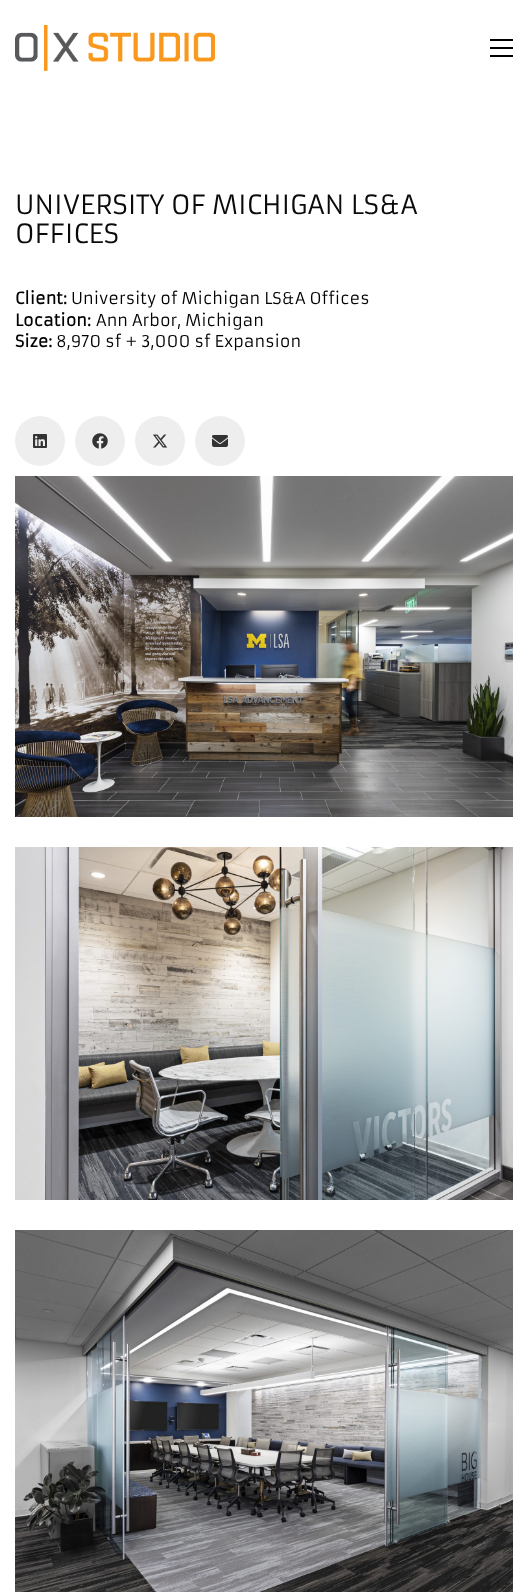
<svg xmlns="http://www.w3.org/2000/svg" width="528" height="1592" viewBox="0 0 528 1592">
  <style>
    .t1 { font: 26px Armata; fill: #0a0a0a; }
    .t2 { font: bold 16px Armata; fill: #000; }
    .t3 { font: 16px Armata; fill: #000; }
  </style>
  <rect width="100%" height="100%" fill="#fff"/>
  <image x="15" y="25" width="200" height="46" href="images/1.png"/>
  <rect x="490" y="39" width="23" height="2" fill="#000"/>
  <rect x="490" y="47" width="23" height="2" fill="#000"/>
  <rect x="490" y="55" width="23" height="2" fill="#000"/>
  <text x="15" y="214" class="t1">UNIVERSITY OF MICHIGAN LS&amp;A</text>
  <text x="15" y="243" class="t1">OFFICES</text>
  <text x="15" y="304" class="t2">Client:</text>
  <text x="71" y="304" class="t3">University of Michigan LS&amp;A Offices</text>
  <text x="15" y="326" class="t2">Location:</text>
  <text x="96" y="326" class="t3">Ann Arbor, Michigan</text>
  <text x="15" y="347" class="t2">Size:</text>
  <text x="56" y="347" class="t3">8,970 sf + 3,000 sf Expansion</text>
  <circle cx="40" cy="441" r="25" fill="#eee"/>
  <image x="33" y="434" width="14" height="14" href="images/2.png"/>
  <circle cx="100" cy="441" r="25" fill="#eee"/>
  <image x="92" y="433" width="16" height="16" href="images/3.png"/>
  <circle cx="160" cy="441" r="25" fill="#eee"/>
  <image x="153" y="434" width="15" height="14" href="images/4.png"/>
  <circle cx="220" cy="441" r="25" fill="#eee"/>
  <image x="212" y="435" width="16" height="12" href="images/5.png"/>
  <image x="15" y="476" width="498" height="341" href="images/6.png"/>
  <image x="15" y="847" width="498" height="353" href="images/7.png"/>
  <image x="15" y="1230" width="498" height="362" href="images/8.png"/>
</svg>
